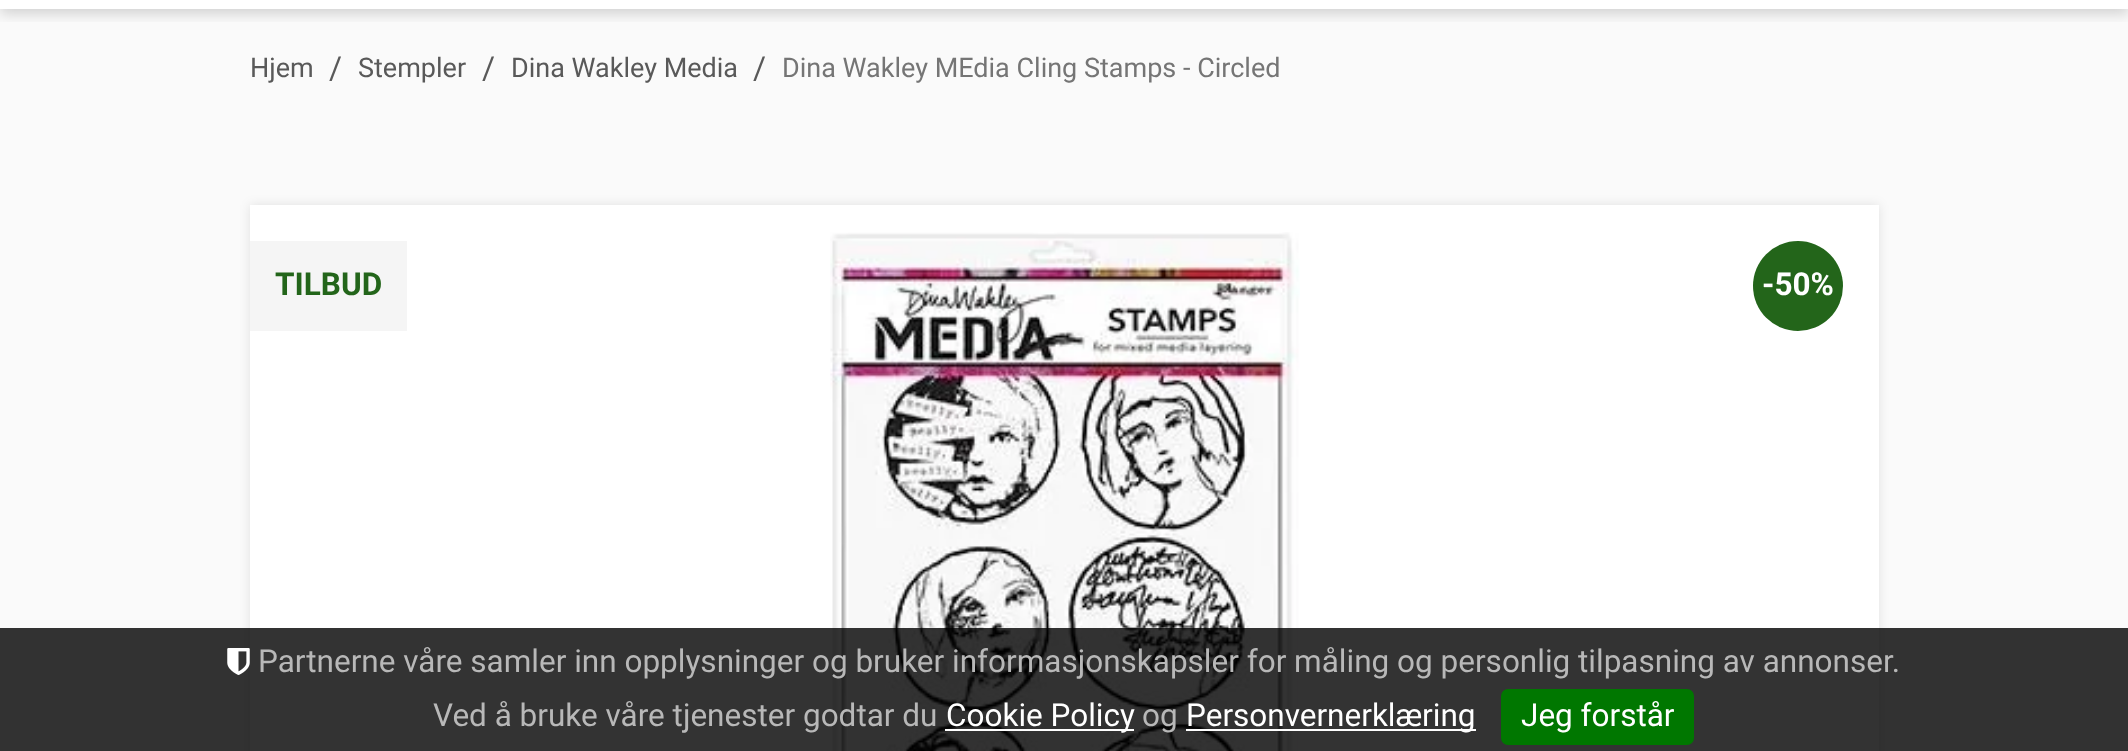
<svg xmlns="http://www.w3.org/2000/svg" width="2128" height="751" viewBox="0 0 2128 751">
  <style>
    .t1 { font: 27px Roboto; fill: #595959; }
    .t2 { font: 31.5px Roboto; fill: #595959; }
    .t3 { font: 27px Roboto; fill: #757575; }
    .t4 { font: bold 31.5px Roboto; fill: #23651a; }
    .t5 { font: bold 31.5px Roboto; fill: #fff; }
    .t6 { font: 31.5px Roboto; fill: #b8b8b8; }
    .t7 { font: 31.5px Roboto; fill: #fff; }
  </style>
  <defs>
    <clipPath id="clip1"><rect x="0" y="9" width="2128" height="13"/></clipPath>
  </defs>
  <rect width="100%" height="100%" fill="#fafafa"/>
  <rect x="0" y="0" width="2128" height="9" fill="#fff"/>
  <g clip-path="url(#clip1)">
    <rect x="0" y="-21" width="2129" height="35" fill="#00000029" filter="blur(7px)"/>
  </g>
  <text x="250" y="77" class="t1">Hjem</text>
  <text x="329" y="79" class="t2">/</text>
  <text x="358" y="77" class="t1">Stempler</text>
  <text x="482" y="79" class="t2">/</text>
  <text x="511" y="77" class="t1">Dina Wakley Media</text>
  <text x="753" y="79" class="t2">/</text>
  <text x="782" y="77" class="t3">Dina Wakley MEdia Cling Stamps - Circled</text>
  <rect x="250" y="205" width="1629" height="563" fill="#0000001a" filter="blur(5.5px)"/>
  <rect x="250" y="205" width="1629" height="546" fill="#fff"/>
  <rect x="250" y="241" width="157" height="90" fill="#f5f5f5"/>
  <text x="275" y="295" class="t4">TILBUD</text>
  <image x="830" y="232" width="470" height="519" href="images/1.png"/>
  <circle cx="1798" cy="286" r="45" fill="#23651a"/>
  <text x="1762" y="295" class="t5">-50%</text>
  <rect x="0" y="628" width="2128" height="123" fill="#000000cc"/>
  <image x="227" y="648" width="23" height="27" href="images/2.png"/>
  <text x="258" y="672" class="t6">Partnerne våre samler inn opplysninger og bruker informasjonskapsler for måling og personlig tilpasning av annonser.</text>
  <text x="433" y="726" class="t6">Ved å bruke våre tjenester godtar du</text>
  <rect x="945" y="729" width="189" height="2" fill="#fff"/>
  <text x="946" y="726" class="t7">Cookie Policy</text>
  <text x="1142" y="726" class="t6">og</text>
  <rect x="1186" y="729" width="290" height="2" fill="#fff"/>
  <text x="1186" y="726" class="t7">Personvernerklæring</text>
  <rect x="1501" y="689" width="193" height="56" rx="7" fill="#070"/>
  <text x="1521" y="726" class="t7">Jeg forstår</text>
</svg>
